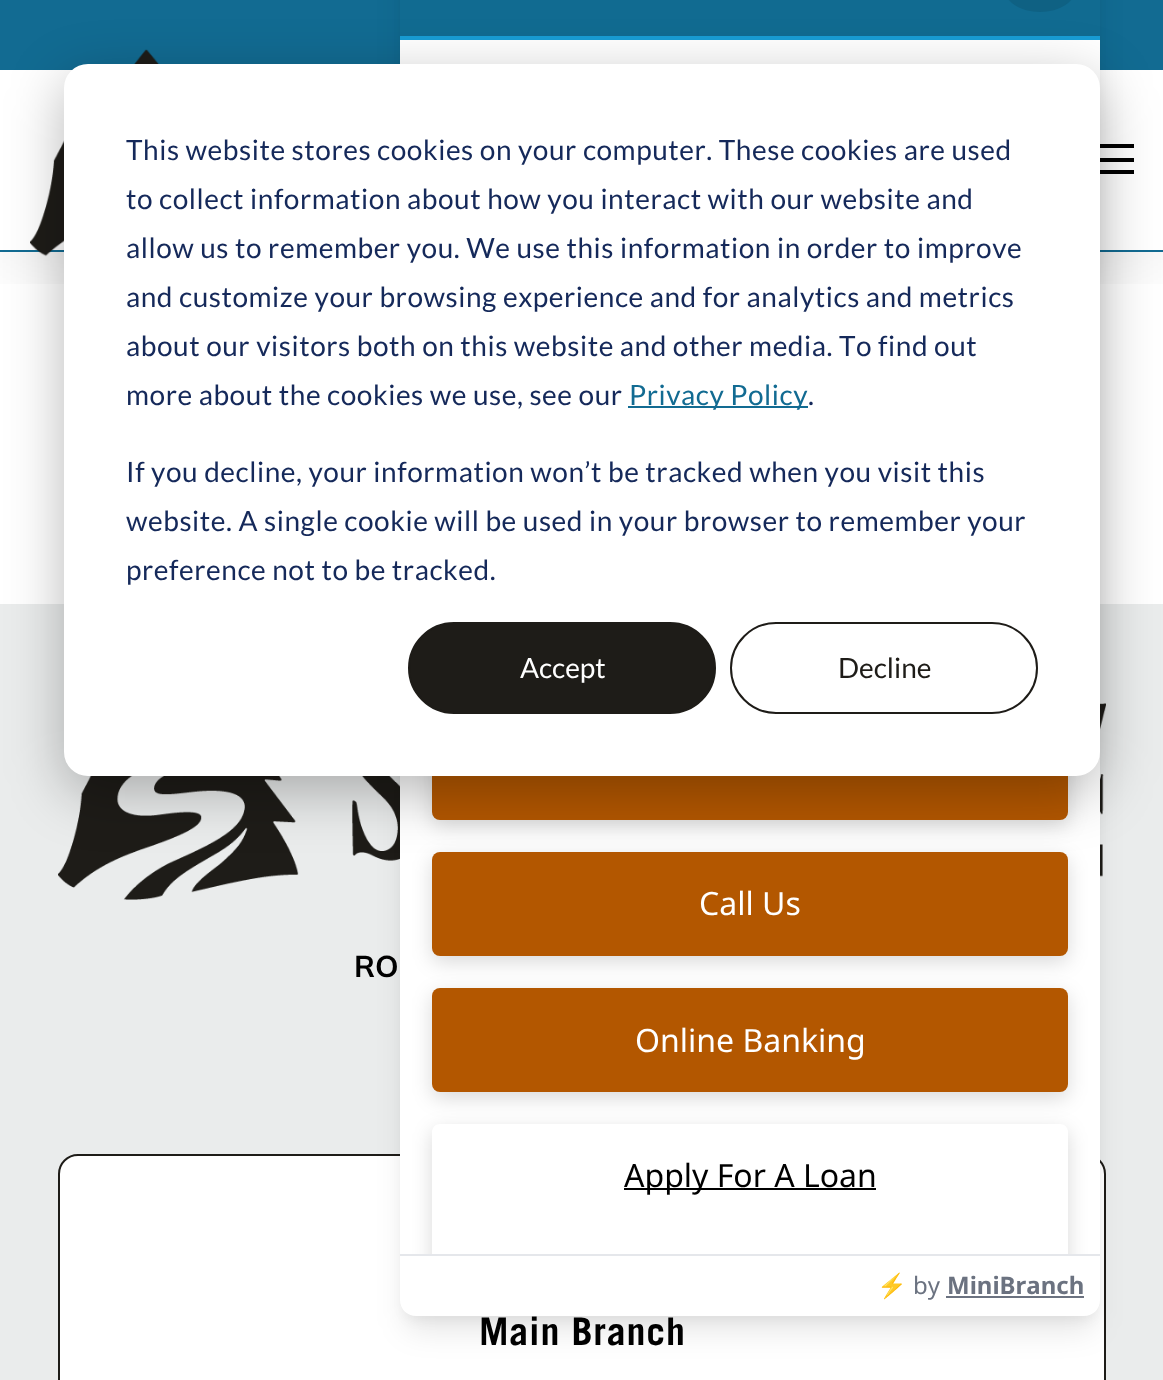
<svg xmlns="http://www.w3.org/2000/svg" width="1163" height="1380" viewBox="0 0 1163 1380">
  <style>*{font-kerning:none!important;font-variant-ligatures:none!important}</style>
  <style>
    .t1 { font: 28px Lato; letter-spacing: 0.55px; fill: #15295a; }
    .t2 { font: 28px Lato; letter-spacing: 0.55px; fill: #126b92; }
    .t3 { font: 28px Lato; fill: #fff; }
    .t4 { font: 28px Lato; fill: #1e1c18; }
    .t5 { font: bold 30px Mulish; fill: #000; }
    .t6 { font: bold 38px Trade Gothic; letter-spacing: 0.75px; fill: #000; }
    .t7 { font: 32px Noto Sans; fill: #fff; }
    .t8 { font: 32px Noto Sans; fill: #000; }
    .t9 { font: 24px Noto Color Emoji; fill: #6b7280; }
    .t10 { font: 24px Noto Sans; fill: #6b7280; }
    .t11 { font: bold 24px Noto Sans; fill: #6b7280; }
  </style>
  <defs>
    <clipPath id="clip1"><rect x="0" y="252" width="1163" height="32"/></clipPath>
    <clipPath id="clip2"><rect x="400" y="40" width="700" height="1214"/></clipPath>
  </defs>
  <rect width="100%" height="100%" fill="#fff"/>
  <g clip-path="url(#clip1)">
    <rect x="0" y="0" width="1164" height="252" fill="#0000001a" filter="blur(40px)"/>
  </g>
  <rect x="0" y="250" width="1163" height="2" fill="#126b92"/>
  <rect x="0" y="0" width="1163" height="70" fill="#126b92"/>
  <image x="30" y="49" width="129" height="208" href="images/1.png"/>
  <rect x="1100" y="144" width="34" height="4" fill="#000"/>
  <rect x="1100" y="170" width="34" height="4" fill="#000"/>
  <rect x="1100" y="158" width="34" height="4" fill="#000"/>
  <rect x="0" y="604" width="1163" height="776" fill="#eaecec"/>
  <image x="58" y="703" width="1048" height="197" href="images/2.png"/>
  <rect x="59" y="1155" width="1046" height="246" rx="19" fill="#fff" stroke="#1e1c18" stroke-width="2"/>
  <rect x="404" y="-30" width="692" height="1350" rx="12" fill="#0000000d" filter="blur(6px)"/>
  <rect x="406" y="-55" width="688" height="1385" rx="10" fill="#0000001a" filter="blur(15px)"/>
  <rect x="400" y="0" width="700" height="36" fill="#116b91"/>
  <rect x="400" y="36" width="700" height="4" fill="#199dd5"/>
  <rect x="1004" y="-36" width="72" height="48" rx="36" fill="#0f6183"/>
  <rect x="400" y="40" width="700" height="1214" fill="#fff"/>
  <rect x="432" y="720" width="636" height="106" rx="8" fill="#00000026" filter="blur(10px)"/>
  <rect x="432" y="714" width="636" height="106" rx="8" fill="#b35700"/>
  <rect x="432" y="858" width="636" height="104" rx="8" fill="#00000026" filter="blur(10px)"/>
  <rect x="432" y="852" width="636" height="104" rx="8" fill="#b35700"/>
  <rect x="64" y="80" width="1036" height="712" rx="24" fill="#00000047" filter="blur(28px)"/>
  <rect x="64" y="64" width="1036" height="712" rx="24" fill="#fff"/>
  <text x="126" y="160" class="t1">This website stores cookies on your computer. These cookies are used</text>
  <text x="126" y="209" class="t1">to collect information about how you interact with our website and</text>
  <text x="126" y="258" class="t1">allow us to remember you. We use this information in order to improve</text>
  <text x="126" y="307" class="t1">and customize your browsing experience and for analytics and metrics</text>
  <text x="126" y="356" class="t1">about our visitors both on this website and other media. To find out</text>
  <text x="126" y="405" class="t1">more about the cookies we use, see our</text>
  <rect x="628" y="406" width="180" height="2" fill="#126b92"/>
  <text x="629" y="405" class="t2">Privacy Policy</text>
  <text x="808" y="405" class="t1">.</text>
  <text x="126" y="482" class="t1">If you decline, your information won’t be tracked when you visit this</text>
  <text x="126" y="531" class="t1">website. A single cookie will be used in your browser to remember your</text>
  <text x="126" y="580" class="t1">preference not to be tracked.</text>
  <rect x="409" y="623" width="306" height="90" rx="45" fill="#1e1c18" stroke="#1e1c18" stroke-width="2"/>
  <text x="520" y="678" class="t3">Accept</text>
  <rect x="731" y="623" width="306" height="90" rx="45" fill="none" stroke="#1e1c18" stroke-width="2"/>
  <text x="838" y="678" class="t4">Decline</text>
  <text x="354" y="977" class="t5">RO</text>
  <text x="479" y="1345" class="t6">Main Branch</text>
  <text x="699" y="915" class="t7">Call Us</text>
  <rect x="432" y="994" width="636" height="104" rx="8" fill="#00000026" filter="blur(10px)"/>
  <rect x="432" y="988" width="636" height="104" rx="8" fill="#b35700"/>
  <text x="635" y="1052" class="t7">Online Banking</text>
  <path d="M400 1256H1100V1300C1100 1309 1093 1316 1084 1316H416C407 1316 400 1309 400 1300Z" fill="#fff"/>
  <rect x="400" y="1254" width="700" height="2" fill="#e5e7eb"/>
  <rect x="946" y="1296" width="138" height="2" fill="#6b7280"/>
  <g clip-path="url(#clip2)">
    <rect x="432" y="1130" width="636" height="178" rx="8" fill="#00000026" filter="blur(10px)"/>
  </g>
  <path d="M440 1124H1060C1064.5 1124 1068 1127.5 1068 1132V1254H432V1132C432 1127.5 435.5 1124 440 1124Z" fill="#fff"/>
  <rect x="624" y="1188" width="252" height="2" fill="#000"/>
  <text x="624" y="1187" class="t8">Apply For A Loan</text>
  <text x="877" y="1294" class="t9">⚡</text>
  <text x="913" y="1294" class="t10">by</text>
  <text x="947" y="1294" class="t11">MiniBranch</text>
</svg>
